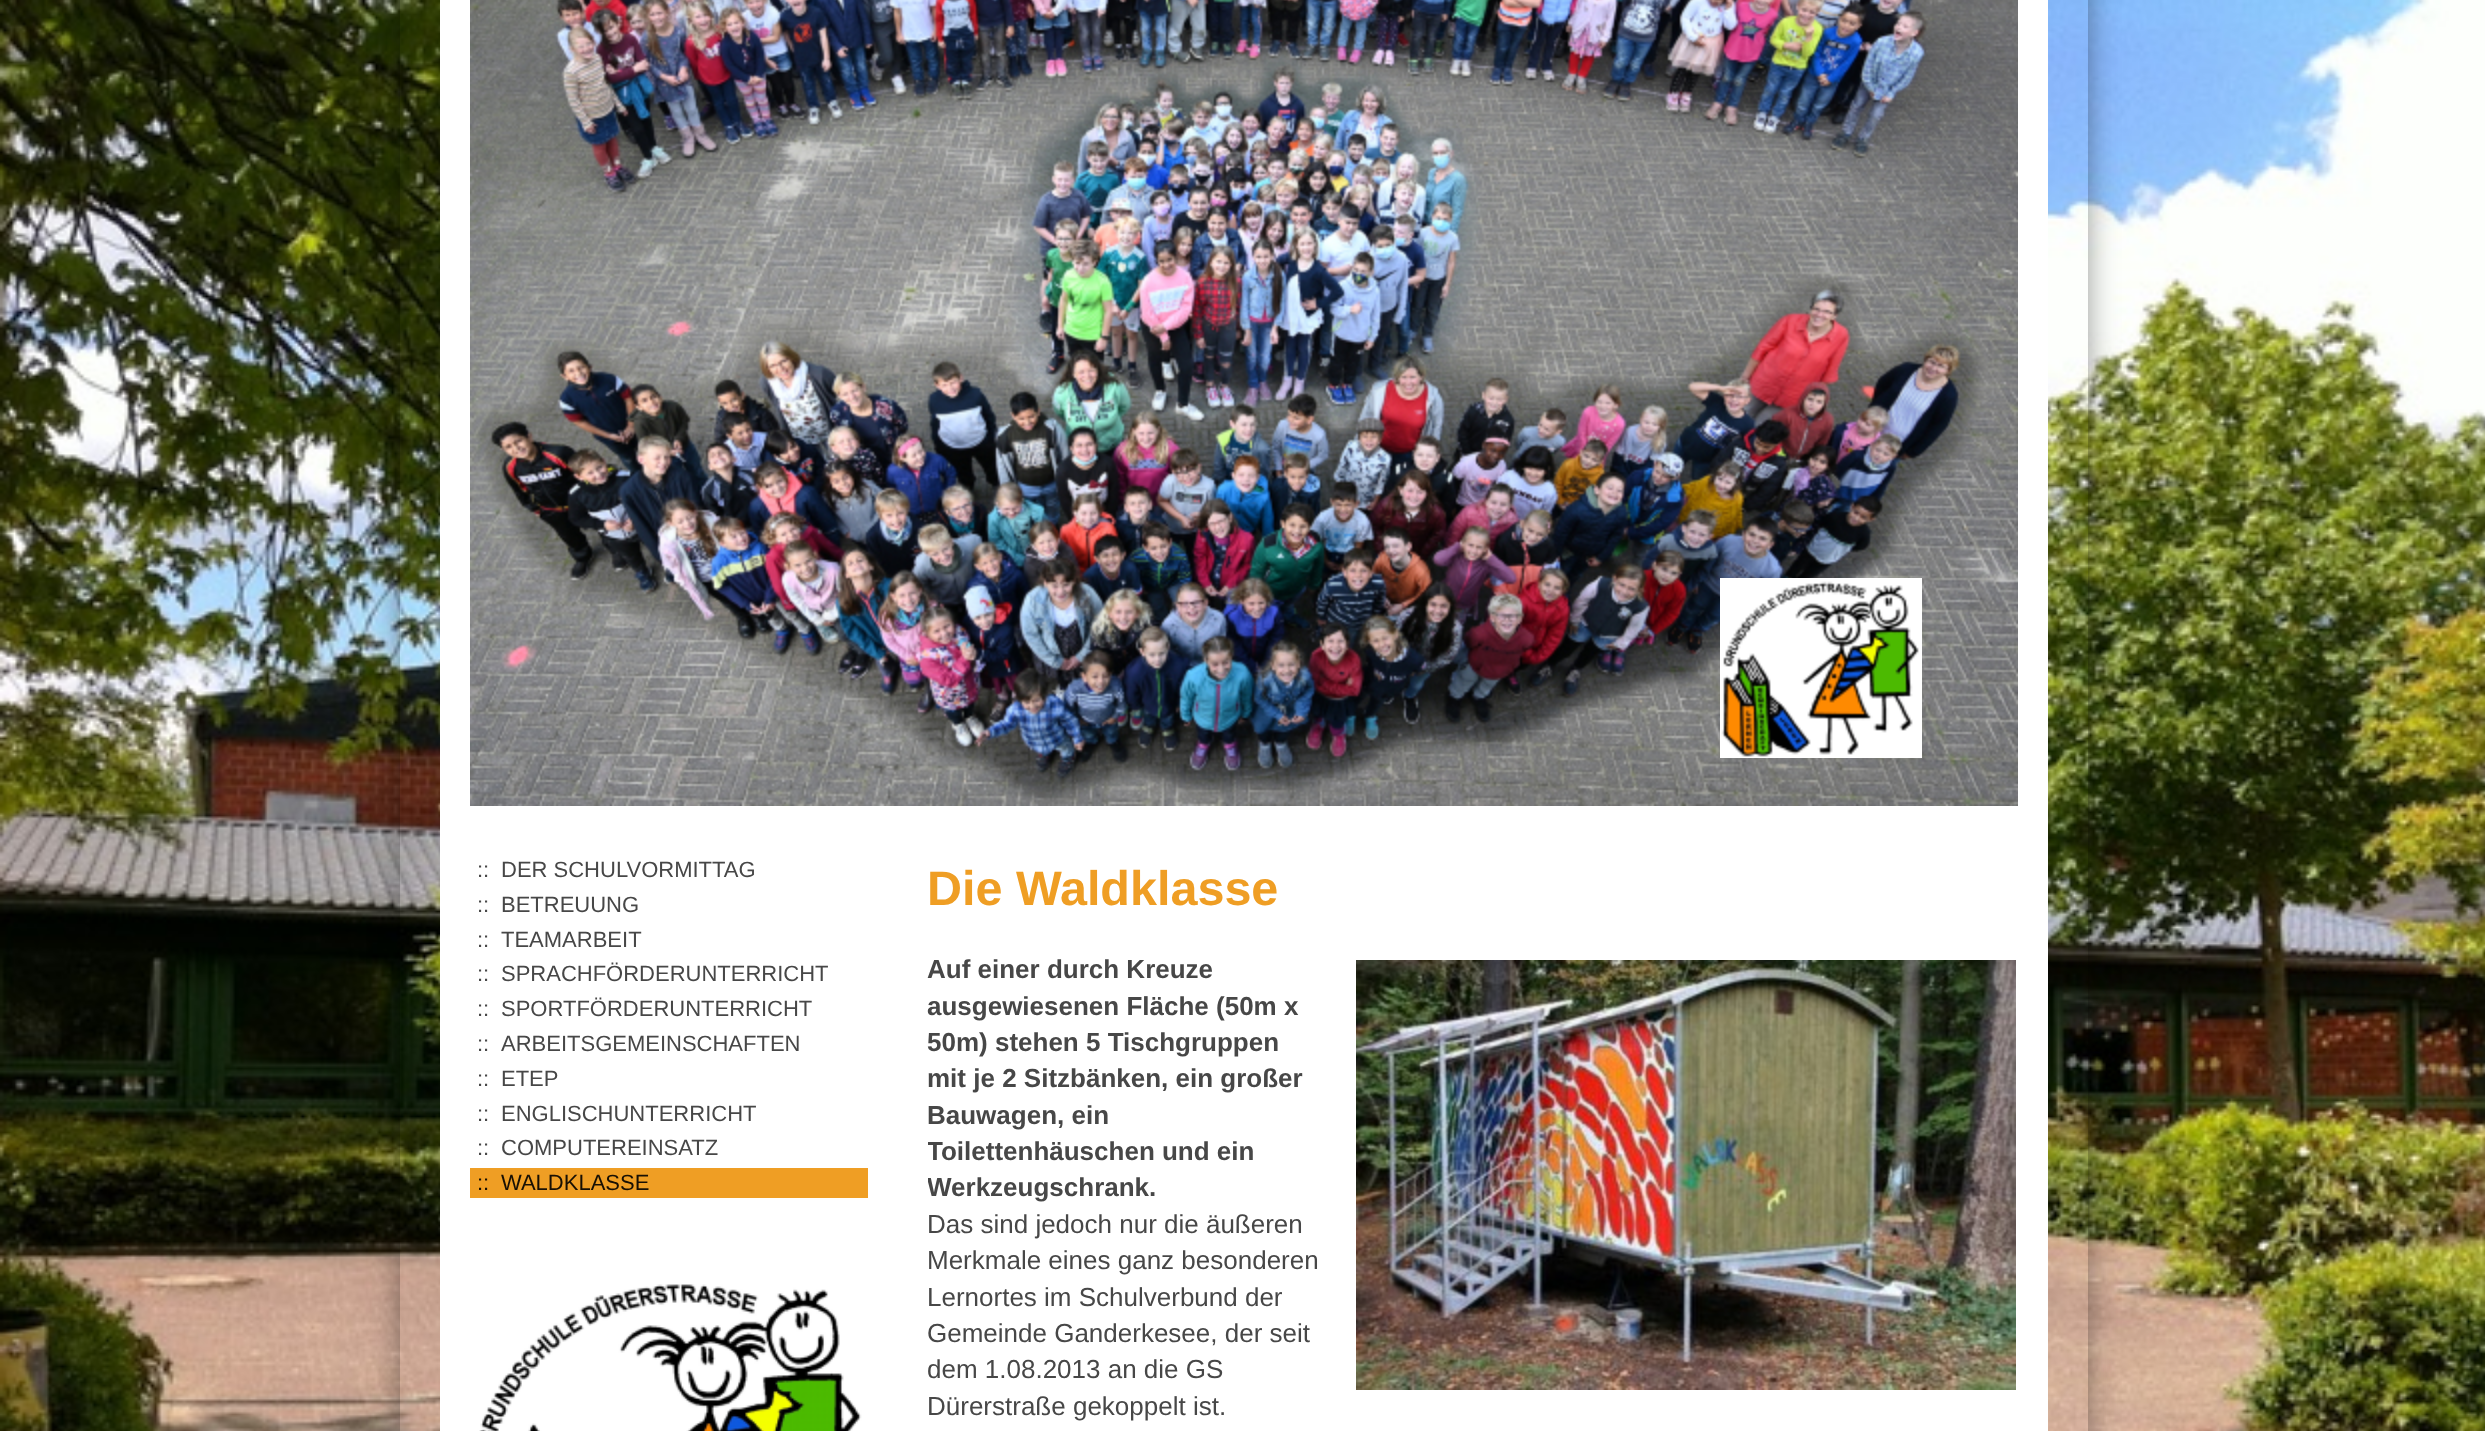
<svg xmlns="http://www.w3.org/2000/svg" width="2485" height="1431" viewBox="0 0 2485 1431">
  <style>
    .t1 { font: 22px Liberation Sans; fill: #474747; }
    .t2 { font: 22px Liberation Sans; fill: #181004; }
    .t3 { font: bold 48.5px Liberation Sans; fill: #ef9e24; }
    .t4 { font: bold 26px Liberation Sans; fill: #474747; }
    .t5 { font: 26px Liberation Sans; fill: #474747; }
  </style>
  <defs>
    <clipPath id="clip1"><path d="M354 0H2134V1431H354ZM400-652H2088V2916H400Z" clip-rule="evenodd"/></clipPath>
    <clipPath id="clip2"><rect x="928" y="952" width="1090" height="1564"/></clipPath>
  </defs>
  <rect width="100%" height="100%" fill="#fff"/>
  <image x="0" y="0" width="2485" height="1431" href="images/1.png"/>
  <g clip-path="url(#clip1)">
    <rect x="400" y="-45" width="1688" height="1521" fill="#00000066" filter="blur(15px)"/>
  </g>
  <rect x="440" y="0" width="1608" height="1431" fill="#fff"/>
  <image x="470" y="0" width="1548" height="806" href="images/2.png"/>
  <image x="1720" y="578" width="202" height="180" href="images/3.png"/>
  <text x="477" y="877" class="t1">::</text>
  <text x="501" y="877" class="t1">DER SCHULVORMITTAG</text>
  <text x="477" y="912" class="t1">::</text>
  <text x="501" y="912" class="t1">BETREUUNG</text>
  <text x="477" y="947" class="t1">::</text>
  <text x="501" y="947" class="t1">TEAMARBEIT</text>
  <text x="477" y="981" class="t1">::</text>
  <text x="501" y="981" class="t1">SPRACHFÖRDERUNTERRICHT</text>
  <text x="477" y="1016" class="t1">::</text>
  <text x="501" y="1016" class="t1">SPORTFÖRDERUNTERRICHT</text>
  <text x="477" y="1051" class="t1">::</text>
  <text x="501" y="1051" class="t1">ARBEITSGEMEINSCHAFTEN</text>
  <text x="477" y="1086" class="t1">::</text>
  <text x="501" y="1086" class="t1">ETEP</text>
  <text x="477" y="1121" class="t1">::</text>
  <text x="501" y="1121" class="t1">ENGLISCHUNTERRICHT</text>
  <text x="477" y="1155" class="t1">::</text>
  <text x="501" y="1155" class="t1">COMPUTEREINSATZ</text>
  <rect x="470" y="1168" width="398" height="30" fill="#ef9e24"/>
  <text x="477" y="1190" class="t2">::</text>
  <text x="501" y="1190" class="t2">WALDKLASSE</text>
  <image x="479" y="1284" width="383" height="147" href="images/4.png"/>
  <text x="927" y="905" class="t3">Die Waldklasse</text>
  <text x="927" y="978" class="t4">Auf einer durch Kreuze</text>
  <text x="927" y="1015" class="t4">ausgewiesenen Fläche (50m x</text>
  <text x="927" y="1051" class="t4">50m) stehen 5 Tischgruppen</text>
  <text x="927" y="1087" class="t4">mit je 2 Sitzbänken, ein großer</text>
  <text x="927" y="1124" class="t4">Bauwagen, ein</text>
  <g clip-path="url(#clip2)">
    <text x="927" y="1160" class="t4">Toilettenhäuschen und ein</text>
    <text x="927" y="1196" class="t4">Werkzeugschrank.</text>
  </g>
  <text x="927" y="1233" class="t5">Das sind jedoch nur die äußeren</text>
  <text x="927" y="1269" class="t5">Merkmale eines ganz besonderen</text>
  <text x="927" y="1306" class="t5">Lernortes im Schulverbund der</text>
  <text x="927" y="1342" class="t5">Gemeinde Ganderkesee, der seit</text>
  <text x="927" y="1378" class="t5">dem 1.08.2013 an die GS</text>
  <text x="927" y="1415" class="t5">Dürerstraße gekoppelt ist.</text>
  <image x="1356" y="960" width="660" height="430" href="images/5.png"/>
</svg>
